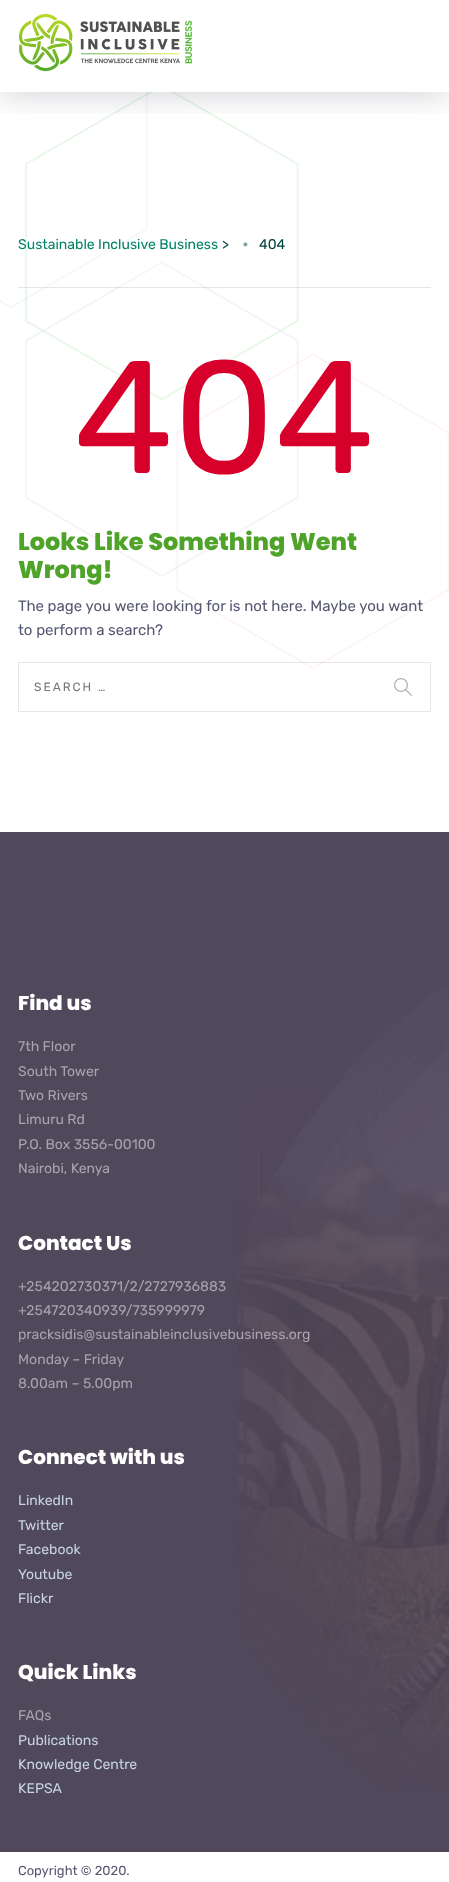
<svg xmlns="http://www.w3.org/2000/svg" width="449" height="1882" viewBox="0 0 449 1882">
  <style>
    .t1 { font: 14px Rubik; fill: #008467; }
    .t2 { font: 14px Rubik; fill: #00423c; }
    .t3 { font: 18px Rubik; fill: #7fa09d; }
    .t4 { font: 160px Rubik; fill: #d6002a; }
    .t5 { font: 800 24px Poppins; fill: #4fa329; }
    .t6 { font: 15px Rubik; fill: #565872; }
    .t7 { font: 12px Rubik; letter-spacing: 2px; fill: #757575; }
    .t8 { font: 800 20px Poppins; fill: #fff; }
    .t9 { font: 14px Rubik; fill: #a8a4ad; }
    .t10 { font: 14px Rubik; fill: #c6d3e3; }
    .t11 { font: 13px Rubik; fill: #565872; }
  </style>
  <defs>
    <clipPath id="clip1"><rect x="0" y="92" width="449" height="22"/></clipPath>
  </defs>
  <rect width="100%" height="100%" fill="#fff"/>
  <image x="0" y="0" width="449" height="669" href="images/1.png"/>
  <rect x="25" y="143" width="274" height="145" fill="#ffffff2e"/>
  <g clip-path="url(#clip1)">
    <rect x="0" y="-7" width="449" height="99" fill="#02062033" filter="blur(17.5px)"/>
  </g>
  <rect x="0" y="0" width="175" height="92" fill="#ffffffcc"/>
  <image x="19" y="13" width="173" height="59" href="images/2.png"/>
  <rect x="18" y="287" width="413" height="1" fill="#0206201a"/>
  <text x="18" y="249" class="t1">Sustainable Inclusive Business</text>
  <text x="222" y="249" class="t2">&gt;</text>
  <text x="242" y="250" class="t3">•</text>
  <text x="259" y="249" class="t2">404</text>
  <text x="74" y="473" class="t4">404</text>
  <text x="18" y="550" class="t5">Looks Like Something Went</text>
  <text x="18" y="578" class="t5">Wrong!</text>
  <text x="18" y="611" class="t6">The page you were looking for is not here. Maybe you want</text>
  <text x="18" y="635" class="t6">to perform a search?</text>
  <rect x="18.5" y="662.5" width="412" height="49" fill="none" stroke="#d5d6dd99"/>
  <text x="34" y="691" class="t7">SEARCH …</text>
  <image x="394" y="678" width="18" height="18" href="images/3.png"/>
  <rect x="0" y="832" width="449" height="1020" fill="#50485b"/>
  <image x="238" y="983" width="211" height="808" href="images/4.png"/>
  <text x="18" y="1010" class="t8">Find us</text>
  <text x="18" y="1051" class="t9">7th Floor</text>
  <text x="18" y="1076" class="t9">South Tower</text>
  <text x="18" y="1100" class="t9">Two Rivers</text>
  <text x="18" y="1124" class="t9">Limuru Rd</text>
  <text x="18" y="1149" class="t9">P.O. Box 3556-00100</text>
  <text x="18" y="1173" class="t9">Nairobi, Kenya</text>
  <text x="18" y="1250" class="t8">Contact Us</text>
  <text x="18" y="1291" class="t9">+254202730371/2/2727936883</text>
  <text x="18" y="1315" class="t9">+254720340939/735999979</text>
  <text x="18" y="1339" class="t9">pracksidis@sustainableinclusivebusiness.org</text>
  <text x="18" y="1364" class="t9">Monday – Friday</text>
  <text x="18" y="1388" class="t9">8.00am – 5.00pm</text>
  <text x="18" y="1464" class="t8">Connect with us</text>
  <text x="18" y="1505" class="t10">LinkedIn</text>
  <text x="18" y="1530" class="t10">Twitter</text>
  <text x="18" y="1554" class="t10">Facebook</text>
  <text x="18" y="1579" class="t10">Youtube</text>
  <text x="18" y="1603" class="t10">Flickr</text>
  <text x="18" y="1679" class="t8">Quick Links</text>
  <text x="18" y="1720" class="t9">FAQs</text>
  <text x="18" y="1745" class="t10">Publications</text>
  <text x="18" y="1769" class="t10">Knowledge Centre</text>
  <text x="18" y="1793" class="t10">KEPSA</text>
  <text x="18" y="1875" class="t11">Copyright © 2020.</text>
</svg>
